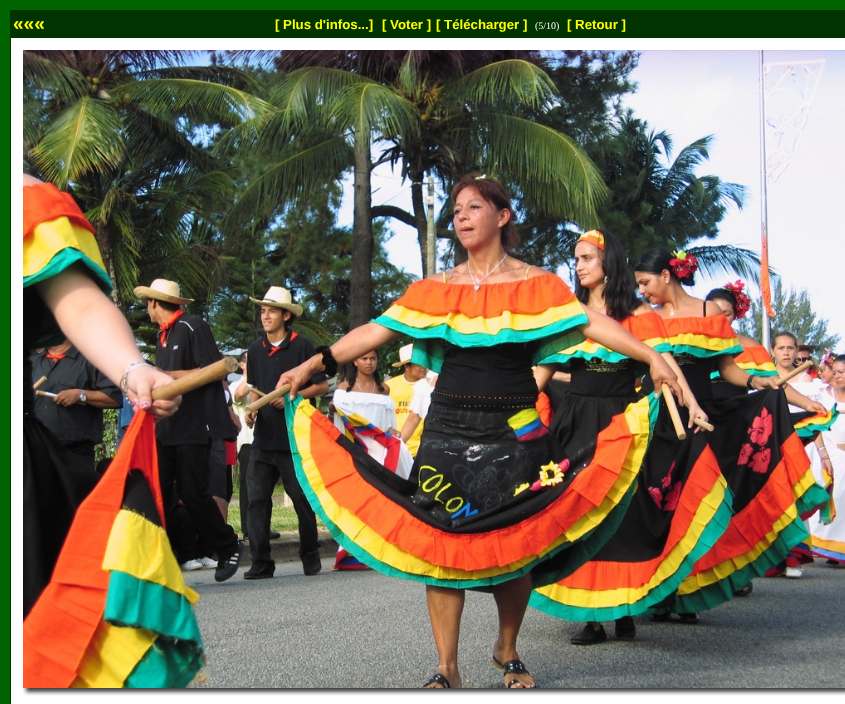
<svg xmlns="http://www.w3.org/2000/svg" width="845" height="704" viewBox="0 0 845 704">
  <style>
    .t1 { font: bold 19px Liberation Sans; fill: #ff0; }
    .t2 { font: bold 13.25px Liberation Sans; fill: #ff0; }
    .t3 { font: 10px Liberation Serif; fill: #fff; }
  </style>
  <rect width="100%" height="100%" fill="#006300"/>
  <rect x="10" y="10" width="835" height="694" fill="#030"/>
  <text x="13" y="30" class="t1">«««</text>
  <text x="275" y="29" class="t2">[ Plus d'infos...]</text>
  <text x="382" y="29" class="t2">[ Voter ]</text>
  <text x="436" y="29" class="t2">[ Télécharger ]</text>
  <text x="535" y="29" class="t3">(5/10)</text>
  <text x="567" y="29" class="t2">[ Retour ]</text>
  <rect x="11" y="38" width="834" height="666" fill="#fff"/>
  <image x="23" y="50" width="822" height="638" href="images/1.png"/>
  <image x="23" y="688" width="7" height="8" href="images/2.png"/>
  <image x="30" y="688" width="815" height="8" href="images/3.png"/>
</svg>
